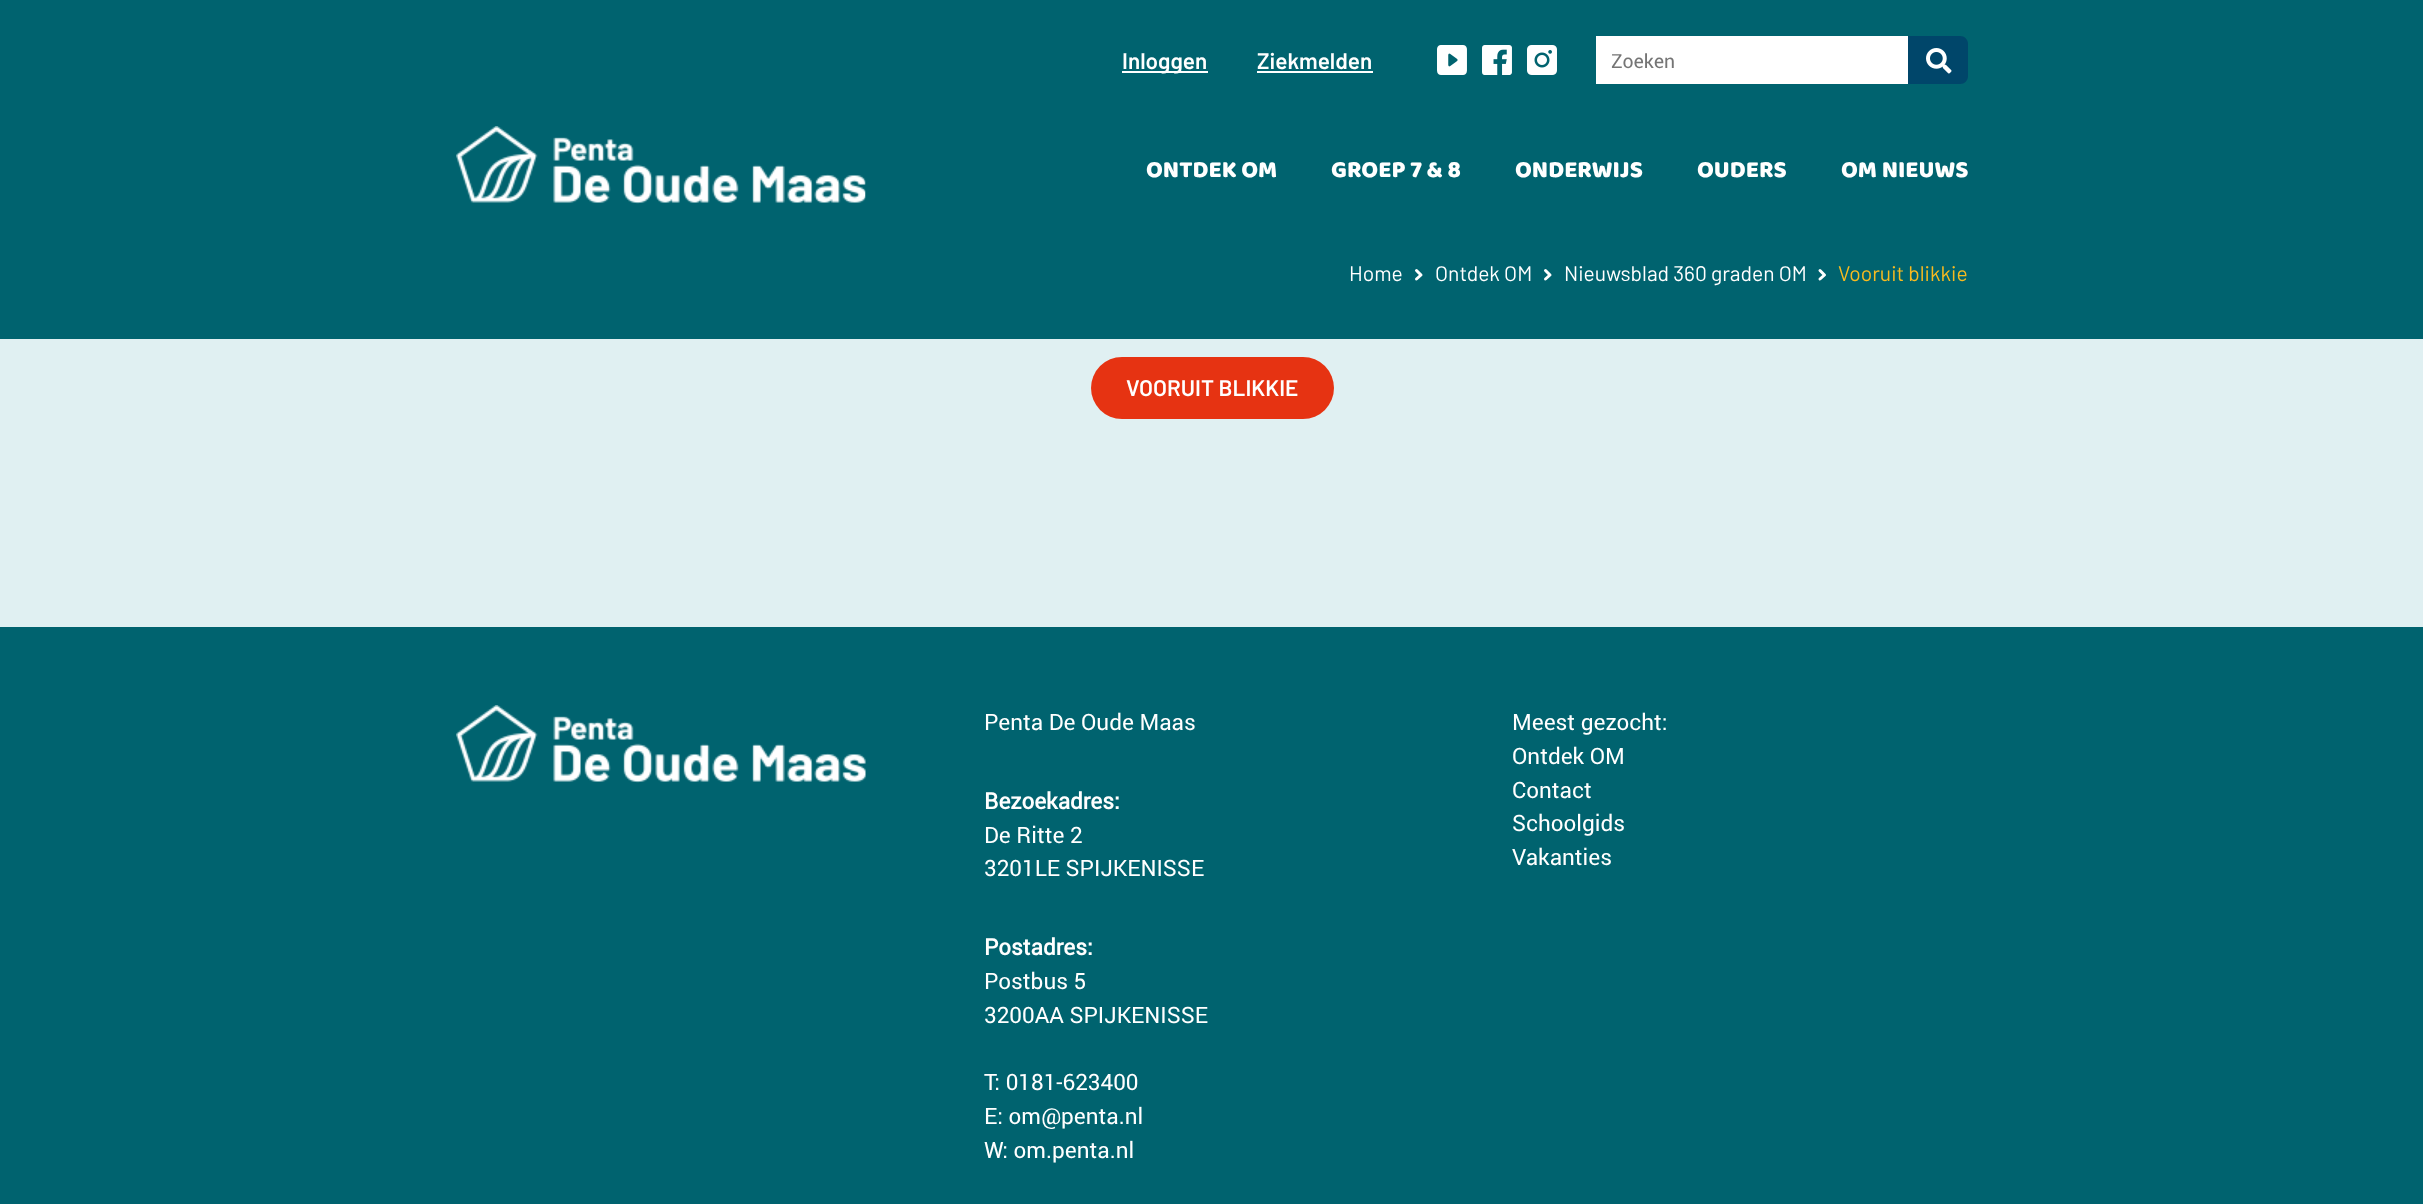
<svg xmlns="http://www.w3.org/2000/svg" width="2423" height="1204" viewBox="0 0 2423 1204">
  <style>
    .t1 { font: 600 22.5px Barlow; fill: #fff; }
    .t2 { font: 19.5px Roboto; fill: #757575; }
    .t3 { font: 24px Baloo; fill: #fff; }
    .t4 { font: 21px Barlow; fill: #fff; }
    .t5 { font: 21px Barlow; fill: #f9bb1f; }
    .t6 { font: 22.5px Roboto; fill: #fff; }
    .t7 { font: bold 22.5px Roboto; fill: #fff; }
  </style>
  <rect width="100%" height="100%" fill="#e0f0f2"/>
  <rect x="0" y="0" width="2423" height="339" fill="#00636f"/>
  <rect x="1122" y="71" width="86" height="2" fill="#fff"/>
  <text x="1122" y="69" class="t1">Inloggen</text>
  <text x="1257" y="69" class="t1">Ziekmelden</text>
  <rect x="1257" y="71" width="116" height="2" fill="#fff"/>
  <image x="1437" y="45" width="30" height="30" href="images/1.png"/>
  <image x="1482" y="45" width="30" height="30" href="images/2.png"/>
  <image x="1527" y="45" width="30" height="30" href="images/3.png"/>
  <rect x="1596" y="36" width="312" height="48" fill="#fff"/>
  <text x="1611" y="68" class="t2">Zoeken</text>
  <path d="M1908 36H1960C1964.5 36 1968 39.5 1968 44V76C1968 80.5 1964.5 84 1960 84H1908Z" fill="#00466a"/>
  <image x="1926" y="48" width="26" height="26" href="images/4.png"/>
  <image x="456" y="126" width="410" height="78" href="images/5.png"/>
  <text x="1146" y="177" class="t3">ONTDEK OM</text>
  <text x="1331" y="177" class="t3">GROEP 7 &amp; 8</text>
  <text x="1515" y="177" class="t3">ONDERWIJS</text>
  <text x="1697" y="177" class="t3">OUDERS</text>
  <text x="1841" y="177" class="t3">OM NIEUWS</text>
  <text x="1349" y="281" class="t4">Home</text>
  <path d="M1416.5 270.5L1421 275L1416.5 279" fill="none" stroke="#fff" stroke-width="3" stroke-linecap="round" stroke-linejoin="round"/>
  <text x="1435" y="281" class="t4">Ontdek OM</text>
  <path d="M1545.5 270.5L1550 275L1545.5 279" fill="none" stroke="#fff" stroke-width="3" stroke-linecap="round" stroke-linejoin="round"/>
  <text x="1564" y="281" class="t4">Nieuwsblad 360 graden OM</text>
  <path d="M1820 270.5L1824.5 275L1820 279" fill="none" stroke="#fff" stroke-width="3" stroke-linecap="round" stroke-linejoin="round"/>
  <text x="1838" y="281" class="t5">Vooruit blikkie</text>
  <rect x="1091" y="357" width="243" height="62" rx="31" fill="#e63312"/>
  <text x="1126" y="396" class="t1">VOORUIT BLIKKIE</text>
  <rect x="0" y="627" width="2423" height="577" fill="#00636f"/>
  <image x="456" y="705" width="410" height="78" href="images/6.png"/>
  <text x="984" y="730" class="t6">Penta De Oude Maas</text>
  <text x="984" y="809" class="t7">Bezoekadres:</text>
  <text x="984" y="843" class="t6">De Ritte 2</text>
  <text x="984" y="876" class="t6">3201LE SPIJKENISSE</text>
  <text x="984" y="955" class="t7">Postadres:</text>
  <text x="984" y="989" class="t6">Postbus 5</text>
  <text x="984" y="1023" class="t6">3200AA SPIJKENISSE</text>
  <text x="984" y="1090" class="t6">T: 0181-623400</text>
  <text x="984" y="1124" class="t6">E: om@penta.nl</text>
  <text x="984" y="1158" class="t6">W: om.penta.nl</text>
  <text x="1512" y="730" class="t6">Meest gezocht:</text>
  <text x="1512" y="764" class="t6">Ontdek OM</text>
  <text x="1512" y="798" class="t6">Contact</text>
  <text x="1512" y="831" class="t6">Schoolgids</text>
  <text x="1512" y="865" class="t6">Vakanties</text>
</svg>
